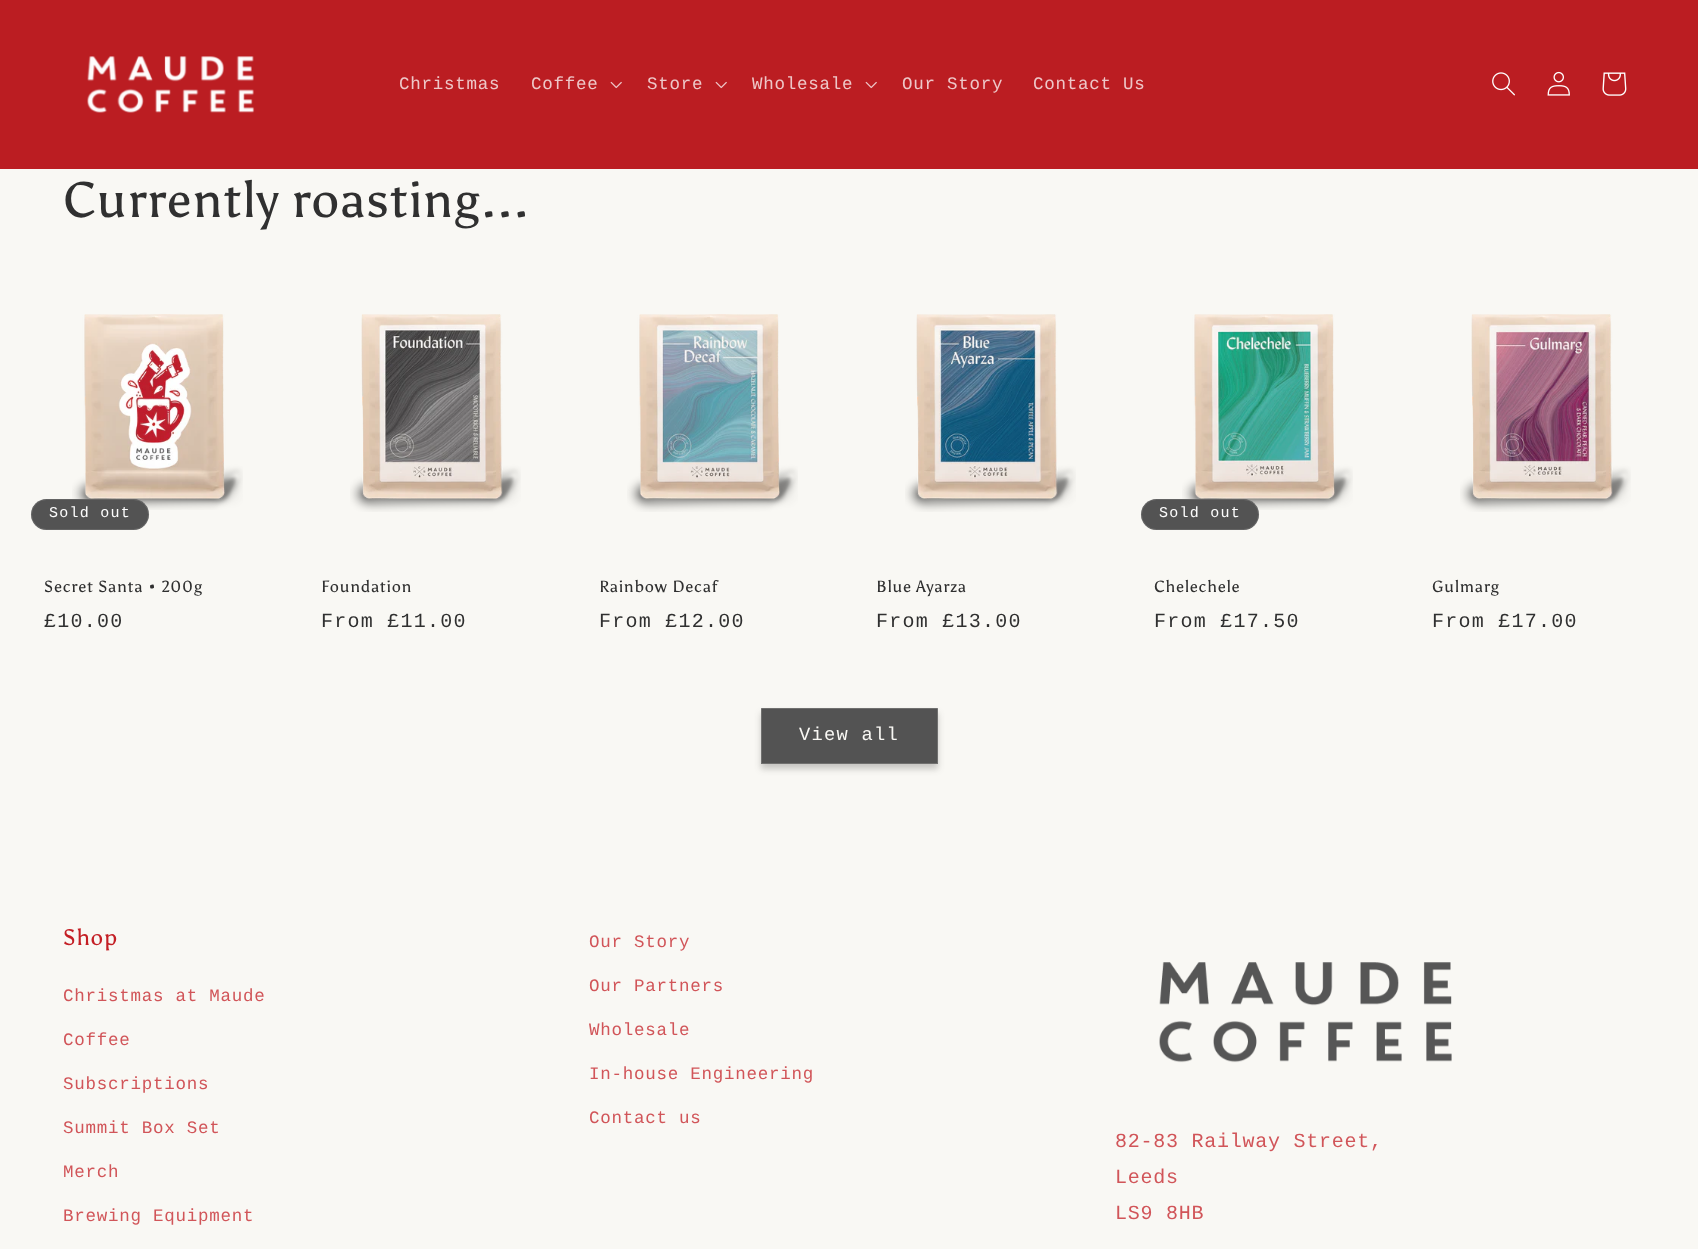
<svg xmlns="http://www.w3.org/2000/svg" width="1698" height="1249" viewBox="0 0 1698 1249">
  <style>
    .t1 { font: 17.5px Liberation Mono; letter-spacing: 0.75px; fill: #eec7c8; }
    .t2 { font: 50px Asul; letter-spacing: 0.75px; fill: #303030; }
    .t3 { font: 15px Liberation Mono; letter-spacing: 1.25px; fill: #fdfdfd; }
    .t4 { font: 16.25px Asul; letter-spacing: 0.75px; fill: #303030; }
    .t5 { font: 20px Liberation Mono; letter-spacing: 1.25px; fill: #303030; }
    .t6 { font: 18.75px Liberation Mono; letter-spacing: 1.25px; fill: #f9f8f4; }
    .t7 { font: 22.5px Asul; letter-spacing: 0.75px; fill: #c41f25; }
    .t8 { font: 17.5px Liberation Mono; letter-spacing: 0.75px; fill: #d15559; }
    .t9 { font: 20px Liberation Mono; letter-spacing: 0.75px; fill: #d15559; }
  </style>
  <rect width="100%" height="100%" fill="#f9f8f4"/>
  <rect x="0" y="0" width="1698" height="169" fill="#bb1d22"/>
  <image x="87" y="56" width="168" height="57" href="images/1.png"/>
  <text x="399" y="89" class="t1">Christmas</text>
  <text x="531" y="89" class="t1">Coffee</text>
  <image x="610" y="81" width="12" height="8" href="images/2.png"/>
  <text x="647" y="89" class="t1">Store</text>
  <image x="715" y="81" width="12" height="8" href="images/2.png"/>
  <text x="752" y="89" class="t1">Wholesale</text>
  <image x="865" y="81" width="12" height="8" href="images/2.png"/>
  <text x="902" y="89" class="t1">Our Story</text>
  <text x="1033" y="89" class="t1">Contact Us</text>
  <image x="1492" y="72" width="23" height="24" href="images/3.png"/>
  <image x="1547" y="71" width="23" height="25" href="images/4.png"/>
  <image x="1602" y="72" width="25" height="24" href="images/5.png"/>
  <text x="63" y="217" class="t2">Currently roasting...</text>
  <image x="72" y="314" width="171" height="196" href="images/6.png"/>
  <rect x="31" y="499" width="118" height="31" rx="15.5" fill="#535353"/>
  <rect x="31.5" y="499.5" width="117" height="30" rx="15" fill="none" stroke="#fdfdfd1a"/>
  <text x="49" y="517" class="t3">Sold out</text>
  <text x="44" y="592" class="t4">Secret Santa • 200g</text>
  <text x="44" y="627" class="t5">£10.00</text>
  <image x="350" y="314" width="171" height="198" href="images/7.png"/>
  <text x="321" y="592" class="t4">Foundation</text>
  <text x="321" y="627" class="t5">From £11.00</text>
  <image x="627" y="314" width="171" height="198" href="images/8.png"/>
  <text x="599" y="592" class="t4">Rainbow Decaf</text>
  <text x="599" y="627" class="t5">From £12.00</text>
  <image x="905" y="314" width="171" height="198" href="images/9.png"/>
  <text x="876" y="592" class="t4">Blue Ayarza</text>
  <text x="876" y="627" class="t5">From £13.00</text>
  <image x="1182" y="314" width="171" height="196" href="images/10.png"/>
  <rect x="1141" y="499" width="118" height="31" rx="15.5" fill="#535353"/>
  <rect x="1141.5" y="499.5" width="117" height="30" rx="15" fill="none" stroke="#fdfdfd1a"/>
  <text x="1159" y="517" class="t3">Sold out</text>
  <text x="1154" y="592" class="t4">Chelechele</text>
  <text x="1154" y="627" class="t5">From £17.50</text>
  <image x="1460" y="314" width="171" height="198" href="images/11.png"/>
  <text x="1432" y="592" class="t4">Gulmarg</text>
  <text x="1432" y="627" class="t5">From £17.00</text>
  <rect x="761" y="713" width="177" height="56" fill="#30303040" filter="blur(3px)"/>
  <rect x="761" y="708" width="177" height="56" fill="#535353"/>
  <rect x="761.2" y="708.2" width="176.6" height="55.6" fill="none" stroke="#9e9d9b" stroke-width="0.4"/>
  <text x="799" y="740" class="t6">View all</text>
  <text x="63" y="945" class="t7">Shop</text>
  <text x="63" y="1001" class="t8">Christmas at Maude</text>
  <text x="63" y="1045" class="t8">Coffee</text>
  <text x="63" y="1089" class="t8">Subscriptions</text>
  <text x="63" y="1133" class="t8">Summit Box Set</text>
  <text x="63" y="1177" class="t8">Merch</text>
  <text x="63" y="1221" class="t8">Brewing Equipment</text>
  <text x="589" y="947" class="t8">Our Story</text>
  <text x="589" y="991" class="t8">Our Partners</text>
  <text x="589" y="1035" class="t8">Wholesale</text>
  <text x="589" y="1079" class="t8">In-house Engineering</text>
  <text x="589" y="1123" class="t8">Contact us</text>
  <image x="1159" y="962" width="293" height="101" href="images/12.png"/>
  <text x="1115" y="1147" class="t9">82-83 Railway Street,</text>
  <text x="1115" y="1183" class="t9">Leeds</text>
  <text x="1115" y="1219" class="t9">LS9 8HB</text>
</svg>
